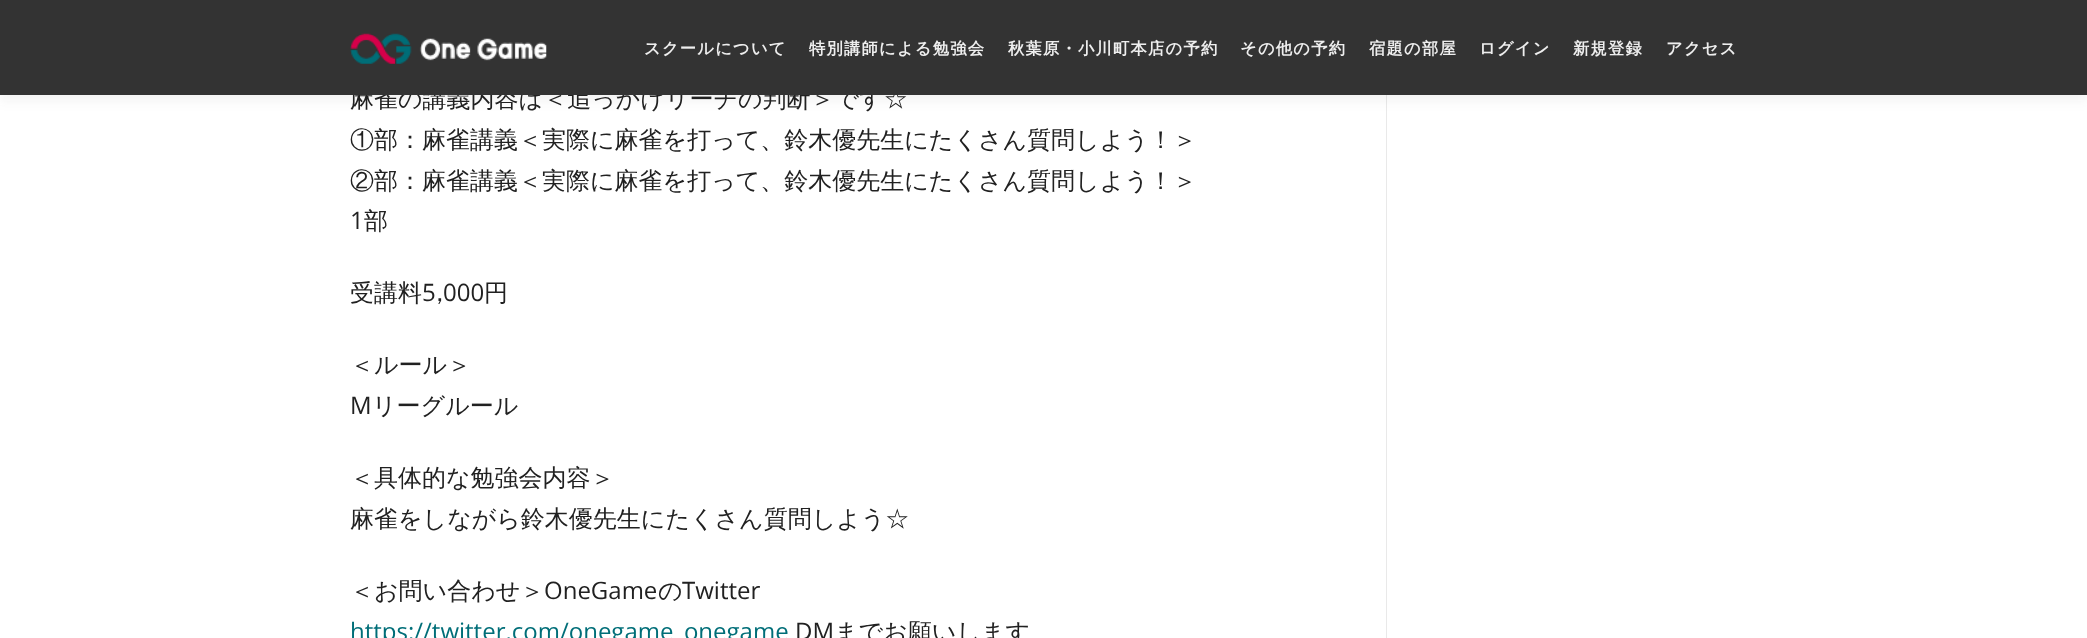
<svg xmlns="http://www.w3.org/2000/svg" width="2087" height="638" viewBox="0 0 2087 638">
  <style>
    .t1 { font: 500 24px WenQuanYi Zen Hei; fill: #212121; }
    .t2 { font: bold 16.25px WenQuanYi Zen Hei; letter-spacing: 1.25px; fill: #eee; }
    .t3 { font: 24px Open Sans; fill: #212121; }
    .t4 { font: 24px Open Sans; fill: #006e78; }
  </style>
  <rect width="100%" height="100%" fill="#fff"/>
  <rect x="1386" y="95" width="1" height="543" fill="#e9e9e9"/>
  <rect x="0" y="6" width="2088" height="95" fill="#3232320f" filter="blur(6px)"/>
  <text x="350" y="107" class="t1">麻雀の講義内容は＜追っかけリーチの判断＞です☆</text>
  <rect x="0" y="0" width="2087" height="95" fill="#333"/>
  <image x="350" y="33" width="197" height="31" href="images/1.png"/>
  <text x="644" y="54" class="t2">スクールについて</text>
  <text x="809" y="54" class="t2">特別講師による勉強会</text>
  <text x="1008" y="54" class="t2">秋葉原・小川町本店の予約</text>
  <text x="1240" y="54" class="t2">その他の予約</text>
  <text x="1369" y="54" class="t2">宿題の部屋</text>
  <text x="1479" y="54" class="t2">ログイン</text>
  <text x="1573" y="54" class="t2">新規登録</text>
  <text x="1666" y="54" class="t2">アクセス</text>
  <text x="350" y="148" class="t1">①部：麻雀講義＜実際に麻雀を打って、鈴木優先生にたくさん質問しよう！＞</text>
  <text x="350" y="189" class="t1">②部：麻雀講義＜実際に麻雀を打って、鈴木優先生にたくさん質問しよう！＞</text>
  <text x="350" y="229" class="t3">1</text>
  <text x="364" y="229" class="t1">部</text>
  <text x="350" y="301" class="t1">受講料</text>
  <text x="422" y="301" class="t3">5</text>
  <text x="436" y="301" class="t1">,</text>
  <text x="443" y="301" class="t3">000</text>
  <text x="484" y="301" class="t1">円</text>
  <text x="350" y="373" class="t1">＜ルール＞</text>
  <text x="350" y="414" class="t3">M</text>
  <text x="372" y="414" class="t1">リーグルール</text>
  <text x="350" y="486" class="t1">＜具体的な勉強会内容＞</text>
  <text x="350" y="527" class="t1">麻雀をしながら鈴木優先生にたくさん質問しよう☆</text>
  <text x="350" y="599" class="t1">＜お問い合わせ＞</text>
  <text x="544" y="599" class="t3">OneGame</text>
  <text x="658" y="599" class="t1">の</text>
  <text x="682" y="599" class="t3">Twitter</text>
  <text x="350" y="640" class="t4">https://twitter.com/onegame_onegame</text>
  <text x="795" y="640" class="t3">DM</text>
  <text x="834" y="640" class="t1">までお願いします</text>
</svg>
